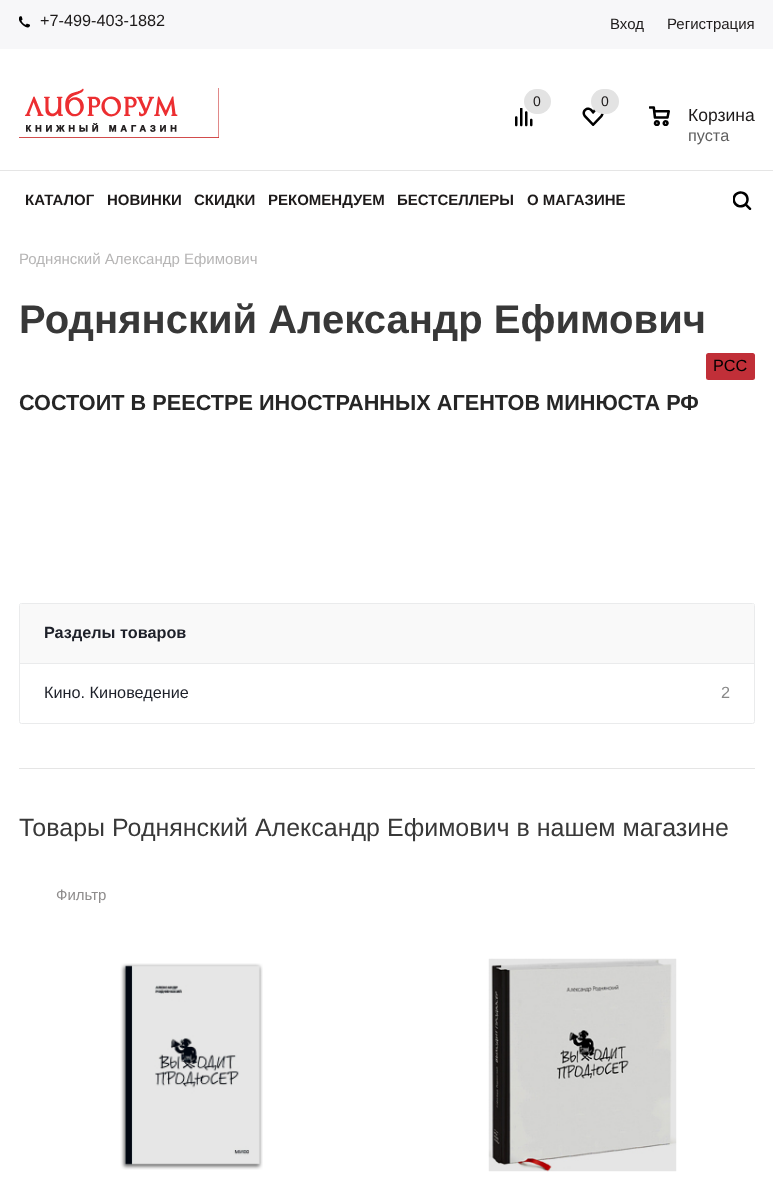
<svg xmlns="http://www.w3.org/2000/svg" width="773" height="1194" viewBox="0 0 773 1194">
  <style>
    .t1 { font: 16.25px Liberation Sans; fill: #1d1a1a; }
    .t2 { font: 15px Liberation Sans; fill: #1d1a1a; }
    .t3 { font: 14px Liberation Sans; fill: #1d1a1a; }
    .t4 { font: 17.5px Liberation Sans; fill: #1d1a1a; }
    .t5 { font: 16.25px Liberation Sans; fill: #5f5f5f; }
    .t6 { font: bold 15px Liberation Sans; fill: #1d1a1a; }
    .t7 { font: 15px Liberation Sans; fill: #b6b5b5; }
    .t8 { font: bold 40px Liberation Sans; fill: #383838; }
    .t9 { font: 16.25px Liberation Sans; fill: #000; }
    .t10 { font: bold 21.7px Liberation Sans; fill: #262626; }
    .t11 { font: bold 16.25px Liberation Sans; fill: #1d2029; }
    .t12 { font: 16.25px Liberation Sans; fill: #1d2029; }
    .t13 { font: 16.25px Liberation Sans; fill: #888; }
    .t14 { font: 25px Liberation Sans; fill: #383838; }
    .t15 { font: 15px Liberation Sans; fill: #8e8c8c; }
  </style>
  <rect width="100%" height="100%" fill="#fff"/>
  <rect x="0" y="0" width="773" height="49" fill="#f7f7f9"/>
  <image x="19" y="16" width="11" height="12" href="images/1.png"/>
  <text x="40" y="26" class="t1">+7-499-403-1882</text>
  <text x="610" y="29" class="t2">Вход</text>
  <text x="667" y="29" class="t2">Регистрация</text>
  <rect x="0" y="170" width="773" height="1" fill="#e5e5e5"/>
  <rect x="19" y="88" width="200" height="50" fill="#c33"/>
  <image x="19" y="88" width="200" height="50" href="images/2.png"/>
  <image x="515" y="108" width="18" height="19" href="images/3.png"/>
  <rect x="524" y="89" width="27" height="25" rx="12.5" fill="#e3e3e3"/>
  <text x="533" y="106" class="t3">0</text>
  <image x="582" y="107" width="22" height="19" href="images/4.png"/>
  <rect x="591" y="89" width="28" height="25" rx="12.5" fill="#e3e3e3"/>
  <text x="601" y="106" class="t3">0</text>
  <image x="649" y="106" width="21" height="20" href="images/5.png"/>
  <text x="688" y="121" class="t4">Корзина</text>
  <text x="688" y="141" class="t5">пуста</text>
  <text x="25" y="205" class="t6">КАТАЛОГ</text>
  <text x="107" y="205" class="t6">НОВИНКИ</text>
  <text x="194" y="205" class="t6">СКИДКИ</text>
  <text x="268" y="205" class="t6">РЕКОМЕНДУЕМ</text>
  <text x="397" y="205" class="t6">БЕСТСЕЛЛЕРЫ</text>
  <text x="527" y="205" class="t6">О МАГАЗИНЕ</text>
  <image x="733" y="191" width="19" height="19" href="images/6.png"/>
  <text x="19" y="264" class="t7">Роднянский Александр Ефимович</text>
  <text x="19" y="333" class="t8">Роднянский Александр Ефимович</text>
  <rect x="706" y="353" width="49" height="27" rx="2.5" fill="#c12f38"/>
  <text x="713" y="371" class="t9">РСС</text>
  <text x="19" y="410" class="t10">СОСТОИТ В РЕЕСТРЕ ИНОСТРАННЫХ АГЕНТОВ МИНЮСТА РФ</text>
  <rect x="19.5" y="603.5" width="735" height="120" rx="2" fill="none" stroke="#eaebec"/>
  <rect x="20" y="604" width="734" height="59" fill="#f9f9f9"/>
  <rect x="20" y="663" width="734" height="1" fill="#eaebec"/>
  <text x="44" y="638" class="t11">Разделы товаров</text>
  <text x="44" y="698" class="t12">Кино. Киноведение</text>
  <text x="721" y="698" class="t13">2</text>
  <rect x="19" y="768" width="736" height="1" fill="#e5e5e5"/>
  <text x="19" y="836" class="t14">Товары Роднянский Александр Ефимович в нашем магазине</text>
  <text x="56" y="900" class="t15">Фильтр</text>
  <image x="120" y="963" width="143" height="207" href="images/7.png"/>
  <image x="488" y="958" width="189" height="214" href="images/8.png"/>
</svg>
